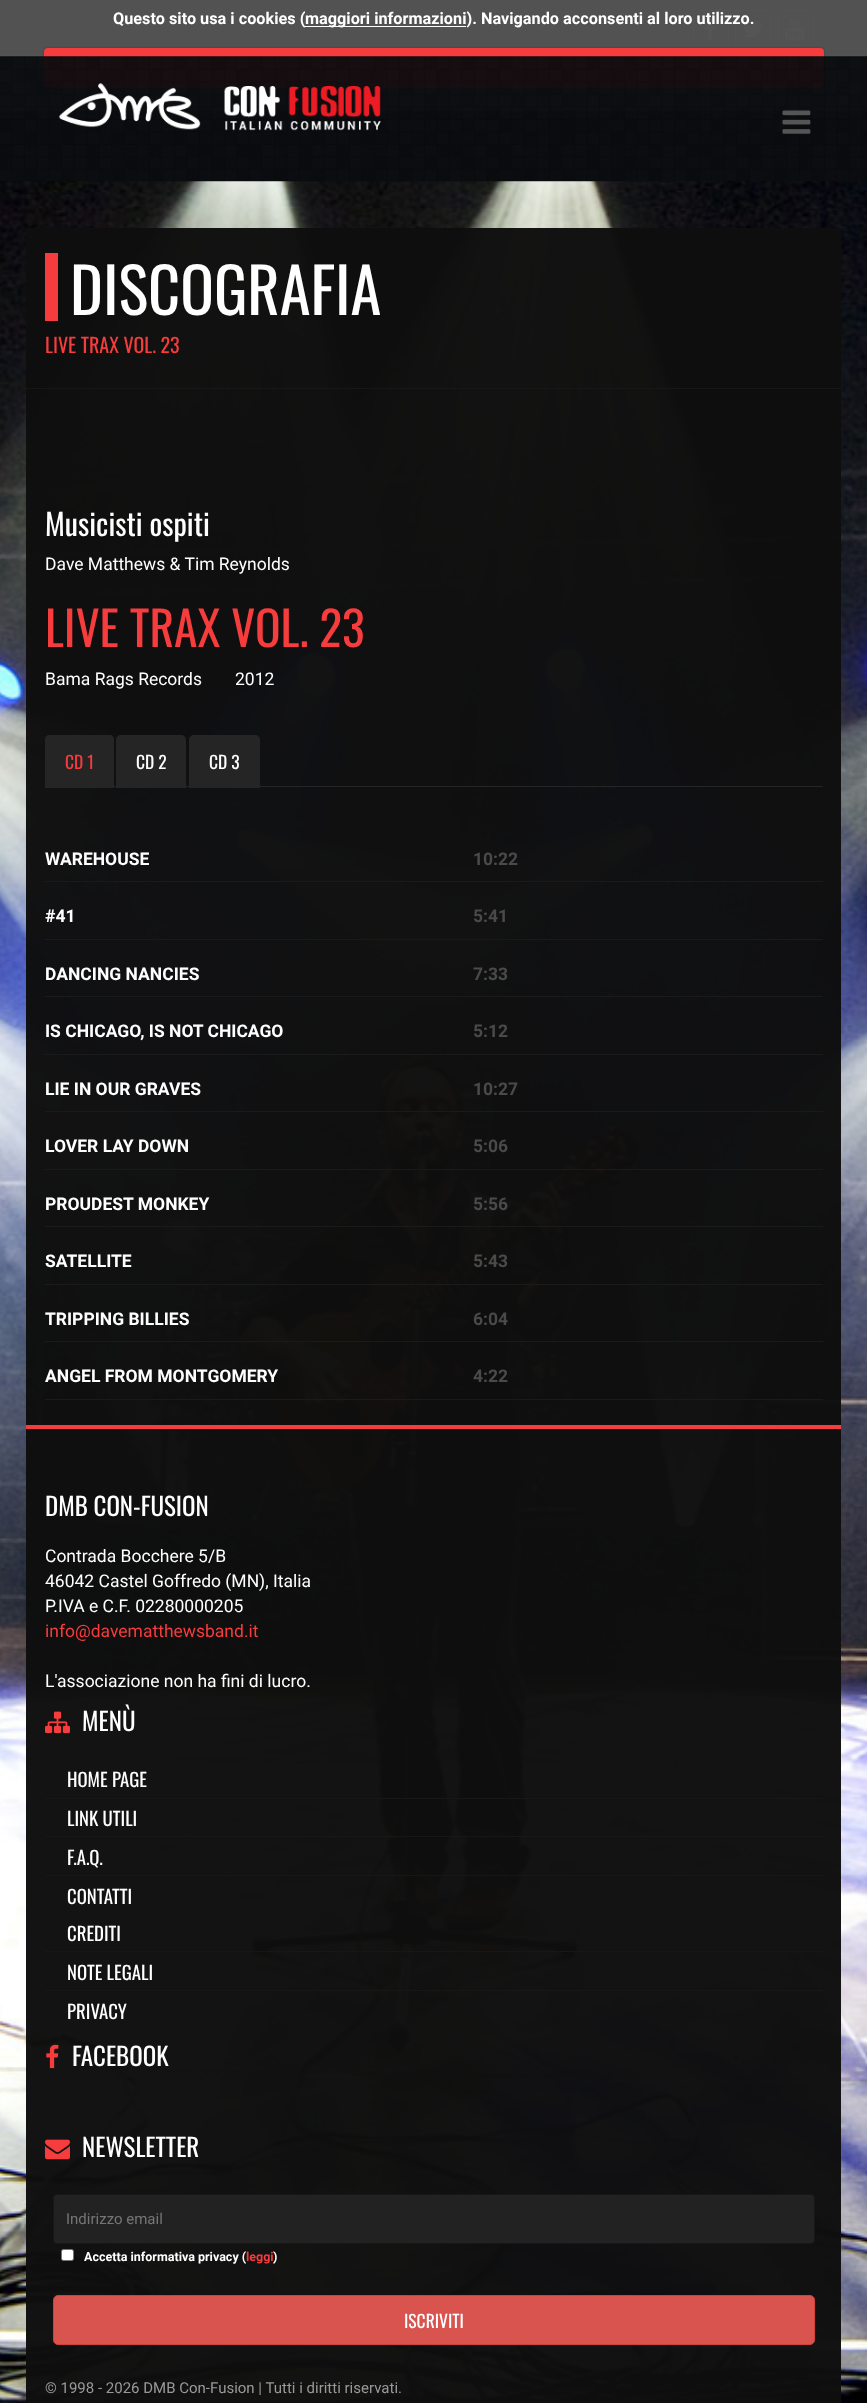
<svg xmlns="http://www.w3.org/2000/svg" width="867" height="2403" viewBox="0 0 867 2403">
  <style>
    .t1 { font: bold 16.25px Roboto; fill: #fff; }
    .t2 { font: 62.5px Oswald; fill: #fff; }
    .t3 { font: 20px Oswald; fill: #f63c3c; }
    .t4 { font: 30px Oswald; fill: #fff; }
    .t5 { font: 17.5px Roboto; fill: #fff; }
    .t6 { font: 47.5px Oswald; fill: #f63c3c; }
    .t7 { font: 17.5px Oswald; fill: #f63c3c; }
    .t8 { font: 17.5px Oswald; fill: #fff; }
    .t9 { font: bold 17.5px Roboto; fill: #fff; }
    .t10 { font: bold 17.5px Roboto; fill: #4a4a4a; }
    .t11 { font: 25px Oswald; fill: #fff; }
    .t12 { font: 17.5px Roboto; fill: #f63c3c; }
    .t13 { font: 18.75px Oswald; fill: #fff; }
    .t14 { font: 15px Roboto; fill: #757575; }
    .t15 { font: bold 12.5px Roboto; fill: #fff; }
    .t16 { font: bold 12.5px Roboto; fill: #f63c3c; }
    .t17 { font: 15px Roboto; fill: #999; }
  </style>
  <rect width="100%" height="100%" fill="#fff"/>
  <rect x="0" y="0" width="867" height="181" fill="#29292b"/>
  <image x="0" y="0" width="867" height="55" href="images/2.png"/>
  <rect x="693.5" y="10.5" width="35" height="35" fill="none" stroke="#2b2b2b"/>
  <image x="705" y="18" width="11" height="22" href="images/3.png"/>
  <rect x="735.5" y="10.5" width="35" height="35" fill="none" stroke="#2b2b2b"/>
  <image x="743" y="21" width="20" height="17" href="images/4.png"/>
  <rect x="778.5" y="10.5" width="35" height="35" fill="none" stroke="#2b2b2b"/>
  <image x="785" y="18" width="19" height="23" href="images/5.png"/>
  <rect x="0" y="0" width="867" height="111" fill="#565656f2"/>
  <text x="113" y="24" class="t1">Questo sito usa i cookies (</text>
  <rect x="305" y="26" width="161" height="1" fill="#fff"/>
  <text x="305" y="24" class="t1">maggiori informazioni). Navigando acconsenti al loro utilizzo.</text>
  <rect x="44" y="48" width="780" height="40" rx="4" fill="#00000040" filter="blur(1px)"/>
  <rect x="44" y="48" width="780" height="40" rx="4" fill="#f63c3c"/>
  <image x="0" y="181" width="867" height="2222" href="images/1.png"/>
  <image x="0" y="56" width="867" height="126" href="images/6.png"/>
  <image x="59" y="83" width="322" height="48" href="images/7.png"/>
  <image x="782" y="110" width="29" height="24" href="images/8.png"/>
  <rect x="26" y="228" width="815" height="160" fill="#0e0e0efa"/>
  <rect x="26" y="388" width="815" height="1" fill="#171717"/>
  <rect x="45" y="253" width="13" height="68" fill="#f63c3c"/>
  <text x="70" y="315" class="t2">DISCOGRAFIA</text>
  <text x="45" y="353" class="t3">LIVE TRAX VOL. 23</text>
  <rect x="26" y="389" width="815" height="1036" fill="#0e0e0efa"/>
  <text x="45" y="536" class="t4">Musicisti ospiti</text>
  <text x="45" y="570" class="t5">Dave Matthews &amp; Tim Reynolds</text>
  <text x="45" y="647" class="t6">LIVE TRAX VOL. 23</text>
  <text x="45" y="685" class="t5">Bama Rags Records</text>
  <text x="235" y="685" class="t5">2012</text>
  <rect x="114" y="786" width="709" height="1" fill="#262525"/>
  <path d="M50 735H109C112 735 114 737 114 740V788H45V740C45 737 47 735 50 735Z" fill="#262525"/>
  <path d="M50 735C48 735 47 736 46 736L47 737C48 736 49 736 50 736H109C110 736 111 737 111 737L112 736C112 735 110 735 109 735Z" fill="#262525"/>
  <path d="M112 736L114 738V788L112 786V740L111 737Z" fill="#262525"/>
  <path d="M45 788L46 786V740C46 739 46 738 47 737L46 736C46 737 45 738 45 740Z" fill="#262525"/>
  <text x="65" y="769" class="t7">CD 1</text>
  <path d="M121 735H181C184 735 186 737 186 740V788H116V740C116 737 118 735 121 735Z" fill="#262525"/>
  <text x="136" y="769" class="t8">CD 2</text>
  <path d="M194 735H255C258 735 260 737 260 740V788H189V740C189 737 191 735 194 735Z" fill="#262525"/>
  <text x="209" y="769" class="t8">CD 3</text>
  <rect x="45" y="881" width="778" height="1" fill="#1a1a1a"/>
  <text x="45" y="865" class="t9">WAREHOUSE</text>
  <text x="473" y="865" class="t10">10:22</text>
  <rect x="45" y="939" width="778" height="1" fill="#1a1a1a"/>
  <text x="45" y="922" class="t9">#41</text>
  <text x="473" y="922" class="t10">5:41</text>
  <rect x="45" y="996" width="778" height="1" fill="#1a1a1a"/>
  <text x="45" y="980" class="t9">DANCING NANCIES</text>
  <text x="473" y="980" class="t10">7:33</text>
  <rect x="45" y="1054" width="778" height="1" fill="#1a1a1a"/>
  <text x="45" y="1037" class="t9">IS CHICAGO, IS NOT CHICAGO</text>
  <text x="473" y="1037" class="t10">5:12</text>
  <rect x="45" y="1111" width="778" height="1" fill="#1a1a1a"/>
  <text x="45" y="1095" class="t9">LIE IN OUR GRAVES</text>
  <text x="473" y="1095" class="t10">10:27</text>
  <rect x="45" y="1169" width="778" height="1" fill="#1a1a1a"/>
  <text x="45" y="1152" class="t9">LOVER LAY DOWN</text>
  <text x="473" y="1152" class="t10">5:06</text>
  <rect x="45" y="1226" width="778" height="1" fill="#1a1a1a"/>
  <text x="45" y="1210" class="t9">PROUDEST MONKEY</text>
  <text x="473" y="1210" class="t10">5:56</text>
  <rect x="45" y="1284" width="778" height="1" fill="#1a1a1a"/>
  <text x="45" y="1267" class="t9">SATELLITE</text>
  <text x="473" y="1267" class="t10">5:43</text>
  <rect x="45" y="1341" width="778" height="1" fill="#1a1a1a"/>
  <text x="45" y="1325" class="t9">TRIPPING BILLIES</text>
  <text x="473" y="1325" class="t10">6:04</text>
  <rect x="45" y="1399" width="778" height="1" fill="#1a1a1a"/>
  <text x="45" y="1382" class="t9">ANGEL FROM MONTGOMERY</text>
  <text x="473" y="1382" class="t10">4:22</text>
  <rect x="26" y="1429" width="815" height="974" fill="#0e0e0efa"/>
  <rect x="26" y="1425" width="815" height="4" fill="#f63c3c"/>
  <text x="45" y="1516" class="t11">DMB CON-FUSION</text>
  <text x="45" y="1562" class="t5">Contrada Bocchere 5/B</text>
  <text x="45" y="1587" class="t5">46042 Castel Goffredo (MN), Italia</text>
  <text x="45" y="1612" class="t5">P.IVA e C.F. 02280000205</text>
  <text x="45" y="1637" class="t12">info@davematthewsband.it</text>
  <text x="45" y="1687" class="t5">L'associazione non ha fini di lucro.</text>
  <image x="45" y="1711" width="25" height="23" href="images/9.png"/>
  <text x="82" y="1731" class="t11">MENÙ</text>
  <rect x="45" y="1798" width="778" height="1" fill="#171717"/>
  <text x="67" y="1787" class="t13">HOME PAGE</text>
  <rect x="45" y="1836" width="778" height="1" fill="#171717"/>
  <text x="67" y="1826" class="t13">LINK UTILI</text>
  <rect x="45" y="1875" width="778" height="1" fill="#171717"/>
  <text x="67" y="1865" class="t13">F.A.Q.</text>
  <text x="67" y="1904" class="t13">CONTATTI</text>
  <rect x="45" y="1951" width="778" height="1" fill="#171717"/>
  <text x="67" y="1941" class="t13">CREDITI</text>
  <rect x="45" y="1990" width="778" height="1" fill="#171717"/>
  <text x="67" y="1980" class="t13">NOTE LEGALI</text>
  <text x="67" y="2019" class="t13">PRIVACY</text>
  <image x="46" y="2044" width="13" height="25" href="images/10.png"/>
  <text x="72" y="2066" class="t11">FACEBOOK</text>
  <image x="45" y="2139" width="25" height="21" href="images/11.png"/>
  <text x="82" y="2157" class="t11">NEWSLETTER</text>
  <rect x="53.5" y="2194.5" width="761" height="49" rx="3.5" fill="#222" stroke="#171717"/>
  <text x="66" y="2224" class="t14">Indirizzo email</text>
  <rect x="61.5" y="2249.5" width="12" height="11" rx="2" fill="#fff" stroke="#767676"/>
  <text x="84" y="2261" class="t15">Accetta informativa privacy (</text>
  <text x="246" y="2261" class="t16">leggi</text>
  <text x="273" y="2261" class="t15">)</text>
  <rect x="53.5" y="2295.5" width="761" height="49" rx="4.5" fill="#d9534f" stroke="#d43f3a"/>
  <text x="404" y="2328" class="t8">ISCRIVITI</text>
  <text x="45" y="2393" class="t17">© 1998 - 2026 DMB Con-Fusion | Tutti i diritti riservati.</text>
</svg>
